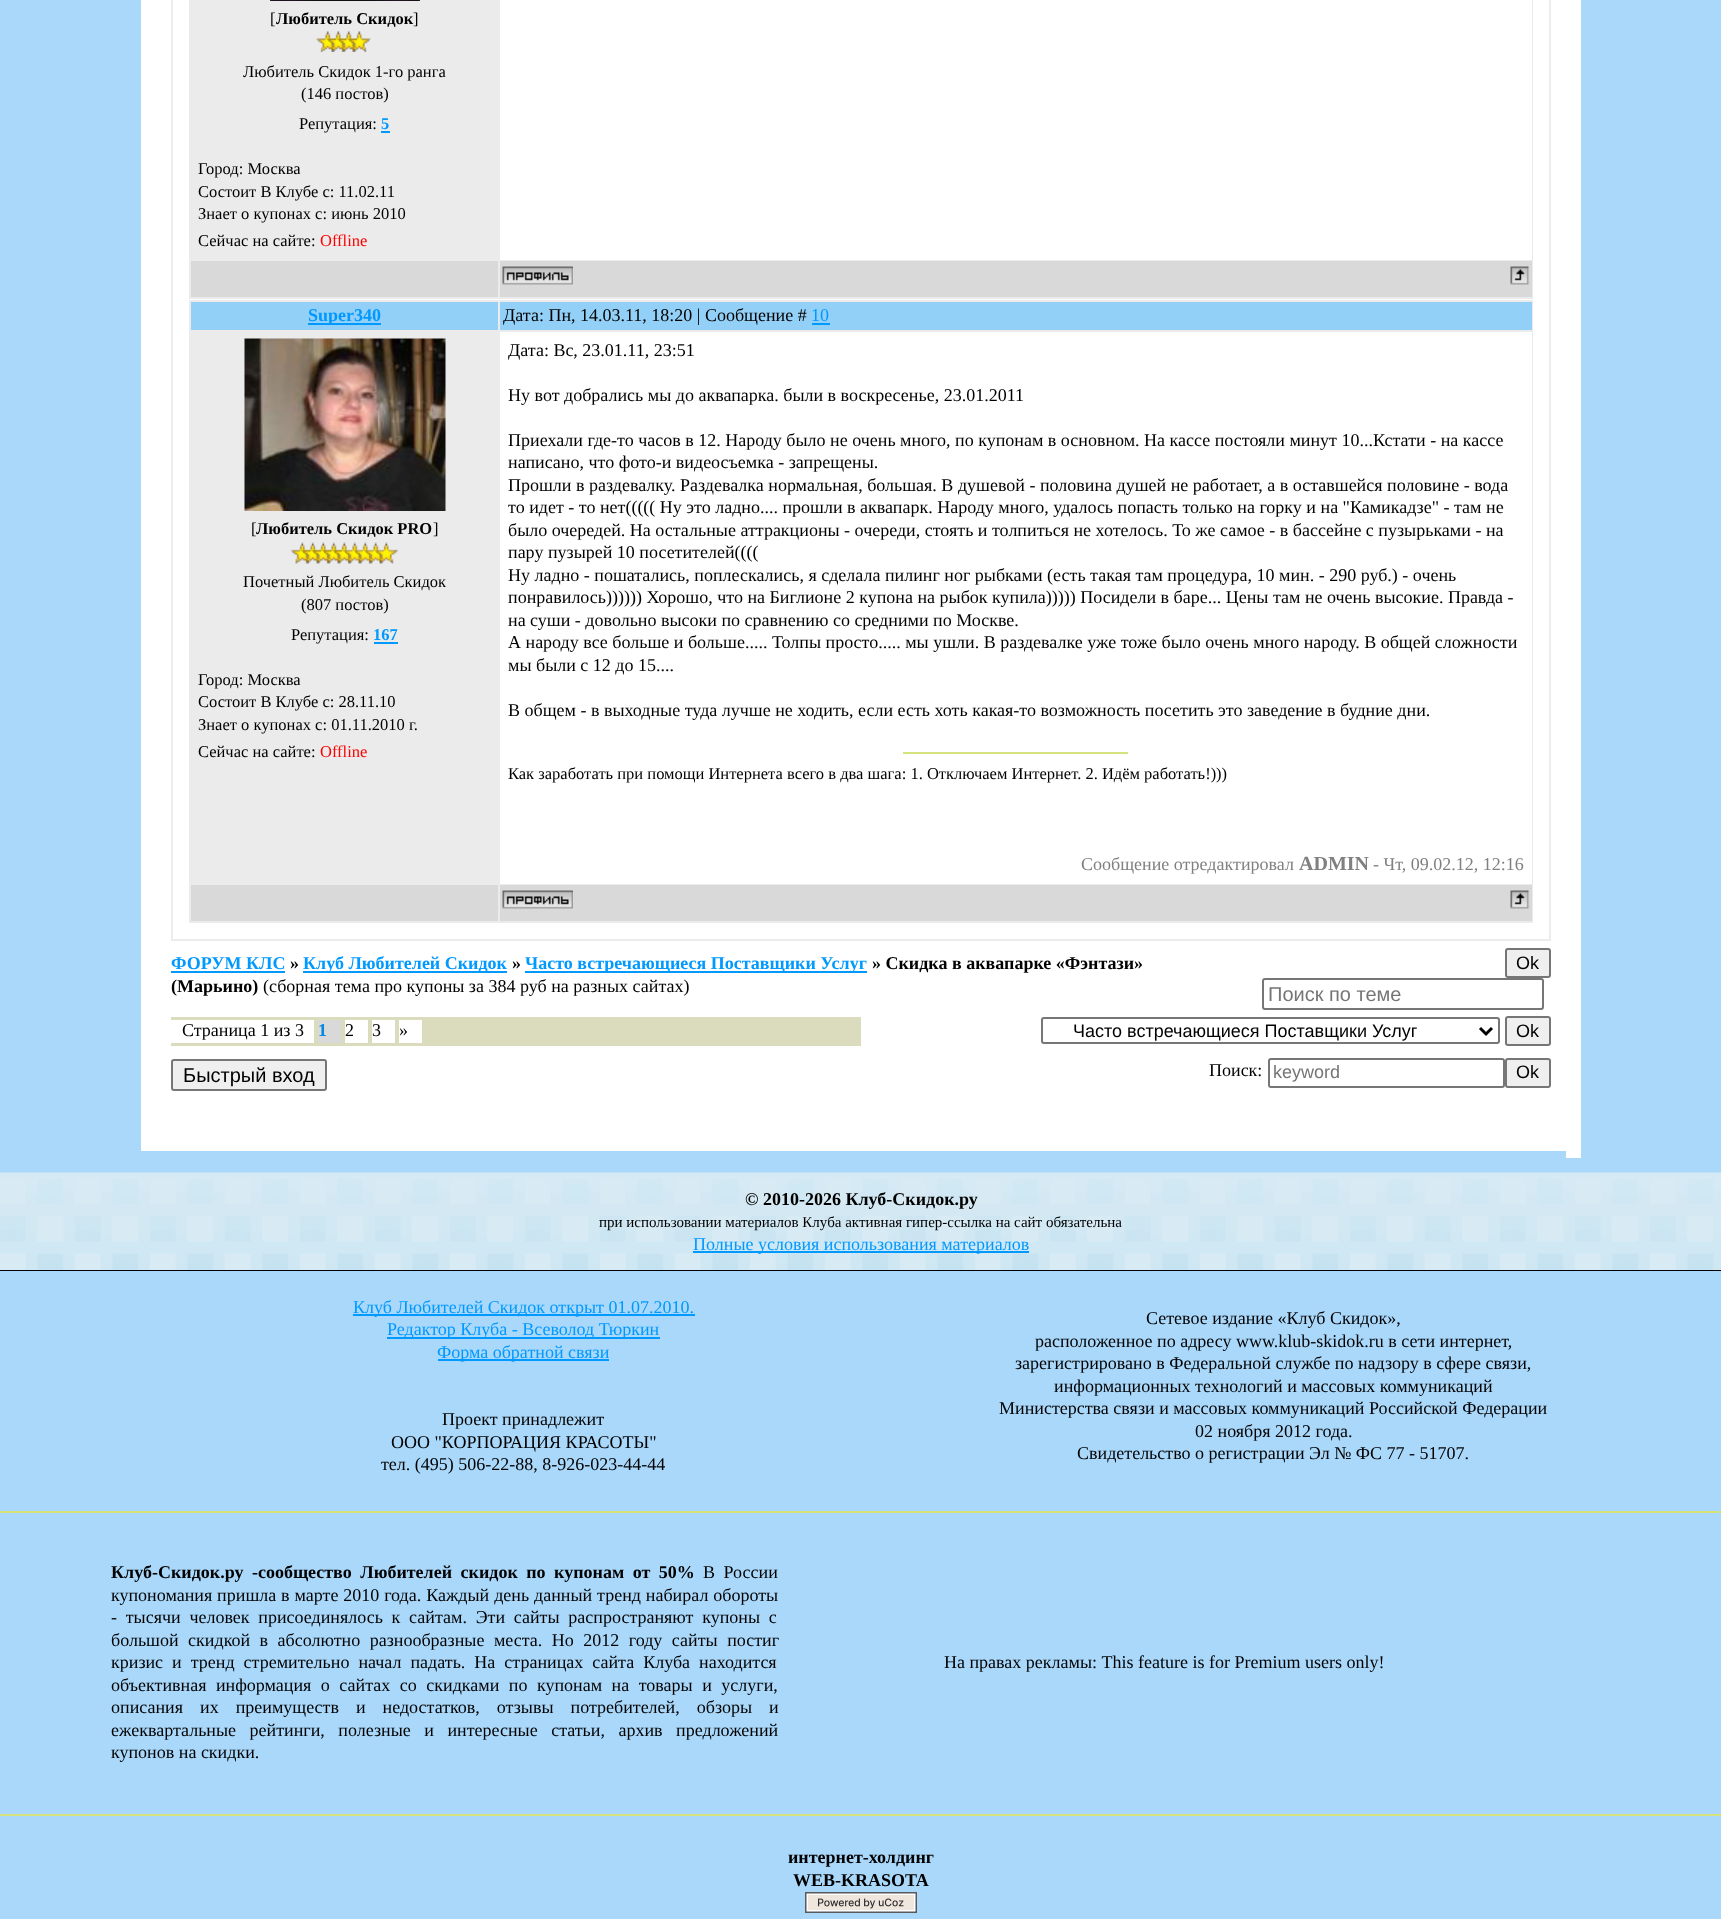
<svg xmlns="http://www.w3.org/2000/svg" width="1721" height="1919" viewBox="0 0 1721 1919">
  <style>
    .t1 { font: 16.5px Liberation Serif; fill: #000; }
    .t2 { font: bold 16.5px Liberation Serif; fill: #000; }
    .t3 { font: bold 16.5px Liberation Serif; fill: #09f; }
    .t4 { font: 16.5px Liberation Serif; fill: #f00; }
    .t5 { font: bold 18px Liberation Serif; fill: #09f; }
    .t6 { font: 18px Liberation Serif; fill: #000; }
    .t7 { font: 18px Liberation Serif; fill: #09f; }
    .t8 { font: 18px Liberation Serif; fill: #808080; }
    .t9 { font: bold 20px Liberation Serif; fill: #808080; }
    .t10 { font: bold 18px Liberation Serif; fill: #000; }
    .t11 { font: 18px Liberation Sans; fill: #000; }
    .t12 { font: 20px Liberation Sans; fill: #757575; }
    .t13 { font: bold 18px Liberation Serif; fill: #0088e2; }
    .t14 { font: 20px Liberation Sans; fill: #000; }
    .t15 { font: 18px Liberation Sans; fill: #757575; }
    .t16 { font: 15px Liberation Serif; fill: #000; }
  </style>
  <rect width="100%" height="100%" fill="#a9d8fb"/>
  <rect x="141" y="0" width="1425" height="1151" fill="#fff"/>
  <rect x="1566" y="0" width="15" height="1158" fill="#fff"/>
  <rect x="172" y="-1" width="1378" height="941" fill="none" stroke="#ececec" stroke-width="2"/>
  <rect x="189" y="0" width="1344" height="299" fill="#ebebeb"/>
  <image x="270" y="0" width="150" height="1" href="images/1.png"/>
  <text x="270" y="24" class="t1">[</text>
  <text x="276" y="24" class="t2">Любитель Скидок</text>
  <text x="413" y="24" class="t1">]</text>
  <image x="316" y="31" width="55" height="21" href="images/2.png"/>
  <text x="243" y="77" class="t1">Любитель Скидок 1-го ранга</text>
  <text x="301" y="99" class="t1">(146 постов)</text>
  <text x="299" y="129" class="t1">Репутация:</text>
  <text x="381" y="129" class="t3">5</text>
  <rect x="381" y="131" width="9" height="2" fill="#09f"/>
  <text x="198" y="174" class="t1">Город: Москва</text>
  <text x="198" y="197" class="t1">Состоит В Клубе с: 11.02.11</text>
  <text x="198" y="219" class="t1">Знает о купонах с: июнь 2010</text>
  <text x="198" y="246" class="t1">Сейчас на сайте:</text>
  <text x="320" y="246" class="t4">Offline</text>
  <rect x="500" y="0" width="1032" height="260" fill="#fff"/>
  <rect x="191" y="261" width="307" height="36" fill="#d9d9d9"/>
  <rect x="500" y="261" width="1032" height="36" fill="#d9d9d9"/>
  <image x="502" y="266" width="71" height="19" href="images/3.png"/>
  <image x="1510" y="266" width="19" height="19" href="images/4.png"/>
  <rect x="189" y="300" width="1344" height="623" fill="#ebebeb"/>
  <rect x="191" y="302" width="307" height="28" fill="#93d0f8"/>
  <rect x="308" y="323" width="73" height="2" fill="#09f"/>
  <text x="308" y="321" class="t5">Super340</text>
  <rect x="500" y="302" width="1032" height="28" fill="#93d0f8"/>
  <text x="503" y="321" class="t6">Дата: Пн, 14.03.11, 18:20 | Сообщение #</text>
  <text x="811" y="321" class="t7">10</text>
  <rect x="812" y="323" width="18" height="2" fill="#09f"/>
  <image x="244" y="338" width="202" height="173" href="images/5.png"/>
  <text x="251" y="534" class="t1">[</text>
  <text x="256" y="534" class="t2">Любитель Скидок PRO</text>
  <text x="433" y="534" class="t1">]</text>
  <image x="290" y="542" width="108" height="22" href="images/6.png"/>
  <text x="243" y="587" class="t1">Почетный Любитель Скидок</text>
  <text x="301" y="610" class="t1">(807 постов)</text>
  <text x="291" y="640" class="t1">Репутация:</text>
  <text x="373" y="640" class="t3">167</text>
  <rect x="374" y="642" width="24" height="2" fill="#09f"/>
  <text x="198" y="685" class="t1">Город: Москва</text>
  <text x="198" y="707" class="t1">Состоит В Клубе с: 28.11.10</text>
  <text x="198" y="730" class="t1">Знает о купонах с: 01.11.2010 г.</text>
  <text x="198" y="757" class="t1">Сейчас на сайте:</text>
  <text x="320" y="757" class="t4">Offline</text>
  <rect x="500" y="332" width="1032" height="552" fill="#fff"/>
  <text x="508" y="356" class="t6">Дата: Вс, 23.01.11, 23:51</text>
  <text x="508" y="401" class="t6">Ну вот добрались мы до аквапарка. были в воскресенье, 23.01.2011</text>
  <text x="508" y="446" class="t6">Приехали где-то часов в 12. Народу было не очень много, по купонам в основном. На кассе постояли минут 10...Кстати - на кассе</text>
  <text x="508" y="468" class="t6">написано, что фото-и видеосъемка - запрещены.</text>
  <text x="508" y="491" class="t6">Прошли в раздевалку. Раздевалка нормальная, большая. В душевой - половина душей не работает, а в оставшейся половине - вода</text>
  <text x="508" y="513" class="t6">то идет - то нет((((( Ну это ладно.... прошли в аквапарк. Народу много, удалось попасть только на горку и на "Камикадзе" - там не</text>
  <text x="508" y="536" class="t6">было очередей. На остальные аттракционы - очереди, стоять и толпиться не хотелось. То же самое - в бассейне с пузырьками - на</text>
  <text x="508" y="558" class="t6">пару пузырей 10 посетителей((((</text>
  <text x="508" y="581" class="t6">Ну ладно - пошатались, поплескались, я сделала пилинг ног рыбками (есть такая там процедура, 10 мин. - 290 руб.) - очень</text>
  <text x="508" y="603" class="t6">понравилось)))))) Хорошо, что на Биглионе 2 купона на рыбок купила))))) Посидели в баре... Цены там не очень высокие. Правда -</text>
  <text x="508" y="626" class="t6">на суши - довольно высоки по сравнению со средними по Москве.</text>
  <text x="508" y="648" class="t6">А народу все больше и больше..... Толпы просто..... мы ушли. В раздевалке уже тоже было очень много народу. В общей сложности</text>
  <text x="508" y="671" class="t6">мы были с 12 до 15....</text>
  <text x="508" y="716" class="t6">В общем - в выходные туда лучше не ходить, если есть хоть какая-то возможность посетить это заведение в будние дни.</text>
  <rect x="903" y="752" width="225" height="2" fill="#d6e37d"/>
  <text x="508" y="779" class="t1">Как заработать при помощи Интернета всего в два шага: 1. Отключаем Интернет. 2. Идём работать!)))</text>
  <text x="1081" y="870" class="t8">Сообщение отредактировал</text>
  <text x="1299" y="870" class="t9">ADMIN</text>
  <text x="1373" y="870" class="t8">- Чт, 09.02.12, 12:16</text>
  <rect x="191" y="885" width="307" height="36" fill="#d9d9d9"/>
  <rect x="500" y="885" width="1032" height="36" fill="#d9d9d9"/>
  <image x="502" y="890" width="71" height="19" href="images/3.png"/>
  <image x="1510" y="890" width="19" height="19" href="images/4.png"/>
  <text x="171" y="969" class="t5">ФОРУМ КЛС</text>
  <rect x="171" y="971" width="114" height="2" fill="#09f"/>
  <text x="290" y="969" class="t10">»</text>
  <rect x="303" y="971" width="204" height="2" fill="#09f"/>
  <text x="303" y="969" class="t5">Клуб Любителей Скидок</text>
  <text x="512" y="969" class="t10">»</text>
  <rect x="525" y="971" width="342" height="2" fill="#09f"/>
  <text x="525" y="969" class="t5">Часто встречающиеся Поставщики Услуг</text>
  <text x="872" y="969" class="t10">» Скидка в аквапарке «Фэнтази»</text>
  <text x="171" y="992" class="t10">(Марьино)</text>
  <text x="263" y="992" class="t6">(сборная тема про купоны за 384 руб на разных сайтах)</text>
  <rect x="1506" y="949" width="44" height="28" rx="2" fill="#efefef" stroke="#767676" stroke-width="2"/>
  <text x="1516" y="969" class="t11">Ok</text>
  <rect x="1263" y="979" width="280" height="30" rx="2" fill="none" stroke="#767676" stroke-width="2"/>
  <text x="1268" y="1001" class="t12">Поиск по теме</text>
  <rect x="171" y="1017" width="690" height="29" fill="#dbdcbe"/>
  <rect x="171" y="1020" width="143" height="23" fill="#fff"/>
  <text x="182" y="1036" class="t6">Страница 1 из 3</text>
  <rect x="318" y="1020" width="23" height="23" fill="#d9d9d9"/>
  <text x="318" y="1036" class="t13">1</text>
  <rect x="345" y="1020" width="23" height="23" fill="#fff"/>
  <text x="345" y="1036" class="t6">2</text>
  <rect x="372" y="1020" width="23" height="23" fill="#fff"/>
  <text x="372" y="1036" class="t6">3</text>
  <rect x="399" y="1020" width="23" height="23" fill="#fff"/>
  <text x="399" y="1036" class="t6">»</text>
  <rect x="1042" y="1018" width="457" height="25" rx="2" fill="none" stroke="#767676" stroke-width="2"/>
  <path d="M1480 1028L1486 1034L1492 1028" fill="none" stroke="#000" stroke-width="3"/>
  <text x="1073" y="1037" class="t11">Часто встречающиеся Поставщики Услуг</text>
  <rect x="1506" y="1017" width="44" height="28" rx="2" fill="#efefef" stroke="#767676" stroke-width="2"/>
  <text x="1516" y="1037" class="t11">Ok</text>
  <rect x="172" y="1060" width="154" height="30" rx="2" fill="#efefef" stroke="#767676" stroke-width="2"/>
  <text x="183" y="1082" class="t14">Быстрый вход</text>
  <text x="1209" y="1076" class="t6">Поиск:</text>
  <rect x="1269" y="1059" width="235" height="28" rx="2" fill="none" stroke="#767676" stroke-width="2"/>
  <text x="1273" y="1078" class="t15">keyword</text>
  <rect x="1506" y="1059" width="44" height="28" rx="2" fill="#efefef" stroke="#767676" stroke-width="2"/>
  <text x="1516" y="1078" class="t11">Ok</text>
  <rect x="0" y="1270" width="1721" height="1" fill="#000"/>
  <image x="0" y="1172" width="1721" height="98" href="images/7.png"/>
  <text x="745" y="1205" class="t10">© 2010-2026 Клуб-Скидок.ру</text>
  <text x="599" y="1227" class="t16">при использовании материалов Клуба активная гипер-ссылка на сайт обязательна</text>
  <rect x="693" y="1251" width="336" height="2" fill="#09f"/>
  <text x="693" y="1250" class="t7">Полные условия использования материалов</text>
  <rect x="353" y="1314" width="342" height="2" fill="#09f"/>
  <text x="353" y="1313" class="t7">Клуб Любителей Скидок открыт 01.07.2010.</text>
  <rect x="387" y="1337" width="273" height="2" fill="#09f"/>
  <text x="387" y="1335" class="t7">Редактор Клуба - Всеволод Тюркин</text>
  <rect x="438" y="1359" width="171" height="2" fill="#09f"/>
  <text x="437" y="1358" class="t7">Форма обратной связи</text>
  <text x="442" y="1425" class="t6">Проект принадлежит</text>
  <text x="391" y="1448" class="t6">ООО "КОРПОРАЦИЯ КРАСОТЫ"</text>
  <text x="381" y="1470" class="t6">тел. (495) 506-22-88, 8-926-023-44-44</text>
  <text x="1146" y="1324" class="t6">Сетевое издание «Клуб Скидок»,</text>
  <text x="1035" y="1347" class="t6">расположенное по адресу www.klub-skidok.ru в сети интернет,</text>
  <text x="1015" y="1369" class="t6">зарегистрировано в Федеральной службе по надзору в сфере связи,</text>
  <text x="1054" y="1392" class="t6">информационных технологий и массовых коммуникаций</text>
  <text x="999" y="1414" class="t6">Министерства связи и массовых коммуникаций Российской Федерации</text>
  <text x="1195" y="1437" class="t6">02 ноября 2012 года.</text>
  <text x="1077" y="1459" class="t6">Свидетельство о регистрации Эл № ФС 77 - 51707.</text>
  <rect x="0" y="1511" width="1721" height="2" fill="#d6e37d"/>
  <text x="111" y="1578" word-spacing="4" class="t10">Клуб-Скидок.ру -сообщество Любителей скидок по купонам от 50%</text>
  <text x="703" y="1578" word-spacing="4" class="t6">В России</text>
  <text x="111" y="1601" word-spacing="0.4" class="t6">купономания пришла в марте 2010 года. Каждый день данный тренд набирал обороты</text>
  <text x="111" y="1623" word-spacing="4.25" class="t6">- тысячи человек присоединялось к сайтам. Эти сайты распространяют купоны с</text>
  <text x="111" y="1646" word-spacing="5" class="t6">большой скидкой в абсолютно разнообразные места. Но 2012 году сайты постиг</text>
  <text x="111" y="1668" word-spacing="4.5" class="t6">кризис и тренд стремительно начал падать. На страницах сайта Клуба находится</text>
  <text x="111" y="1691" word-spacing="5" class="t6">объективная информация о сайтах со скидками по купонам на товары и услуги,</text>
  <text x="111" y="1713" word-spacing="12.5" class="t6">описания их преимуществ и недостатков, отзывы потребителей, обзоры и</text>
  <text x="111" y="1736" word-spacing="9" class="t6">ежеквартальные рейтинги, полезные и интересные статьи, архив предложений</text>
  <text x="111" y="1758" class="t6">купонов на скидки.</text>
  <text x="944" y="1668" class="t6">На правах рекламы: This feature is for Premium users only!</text>
  <rect x="0" y="1814" width="1721" height="2" fill="#d6e37d"/>
  <text x="788" y="1863" class="t10">интернет-холдинг</text>
  <text x="793" y="1886" class="t10">WEB-KRASOTA</text>
  <image x="805" y="1892" width="112" height="21" href="images/8.png"/>
</svg>
